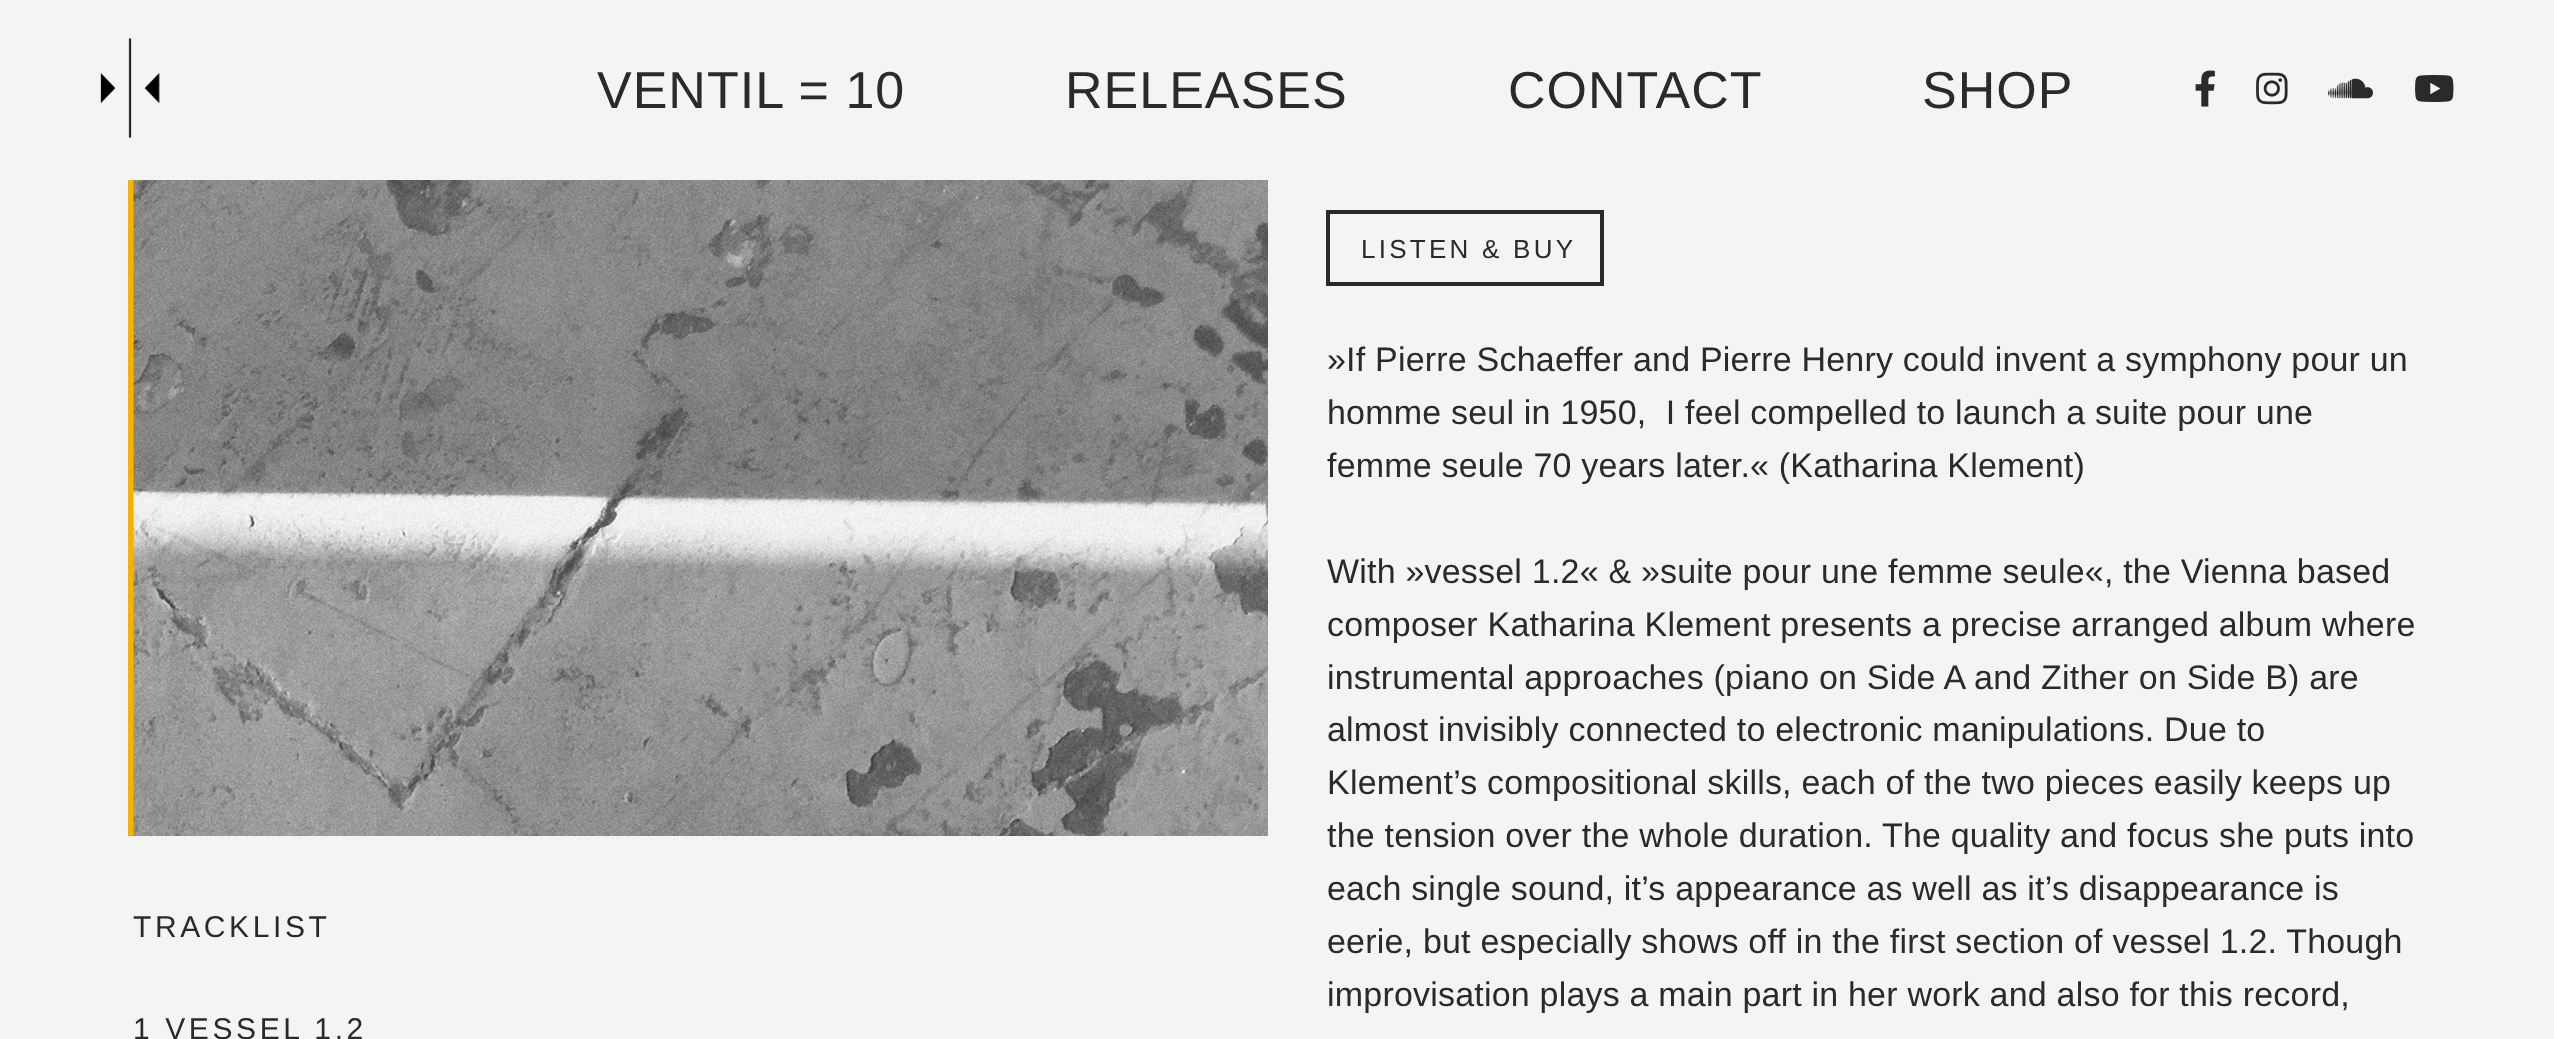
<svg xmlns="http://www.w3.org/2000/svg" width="2554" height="1039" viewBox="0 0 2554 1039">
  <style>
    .t1 { font: 52px Liberation Sans; letter-spacing: 1px; fill: #292a2c; }
    .t2 { font: 26px Liberation Sans; letter-spacing: 3.25px; fill: #292a2c; }
    .t3 { font: 30px Liberation Sans; letter-spacing: 3.6px; fill: #292a2c; }
    .t4 { font: 34px Liberation Sans; letter-spacing: 0.2px; fill: #292a2c; }
  </style>
  <rect width="100%" height="100%" fill="#f4f4f4"/>
  <image x="100" y="38" width="60" height="100" href="images/1.png"/>
  <text x="597" y="108" class="t1">VENTIL = 10</text>
  <text x="1065" y="108" class="t1">RELEASES</text>
  <text x="1508" y="108" class="t1">CONTACT</text>
  <text x="1922" y="108" class="t1">SHOP</text>
  <image x="2195" y="70" width="20" height="37" href="images/2.png"/>
  <image x="2256" y="72" width="32" height="33" href="images/3.png"/>
  <image x="2328" y="78" width="45" height="21" href="images/4.png"/>
  <image x="2415" y="75" width="39" height="27" href="images/5.png"/>
  <rect x="1328" y="212" width="274" height="72" fill="none" stroke="#292a2c" stroke-width="4"/>
  <text x="1361" y="258" class="t2">LISTEN &amp; BUY</text>
  <image x="128" y="180" width="1140" height="656" href="images/6.png"/>
  <text x="133" y="937" class="t3">TRACKLIST</text>
  <text x="133" y="1039" class="t3">1 VESSEL 1.2</text>
  <text x="1327" y="371" class="t4">»If Pierre Schaeffer and Pierre Henry could invent a symphony pour un</text>
  <text x="1327" y="424" class="t4" xml:space="preserve">homme seul in 1950,  I feel compelled to launch a suite pour une</text>
  <text x="1327" y="477" class="t4">femme seule 70 years later.« (Katharina Klement)</text>
  <text x="1327" y="583" class="t4">With »vessel 1.2« &amp; »suite pour une femme seule«, the Vienna based</text>
  <text x="1327" y="636" class="t4">composer Katharina Klement presents a precise arranged album where</text>
  <text x="1327" y="689" class="t4">instrumental approaches (piano on Side A and Zither on Side B) are</text>
  <text x="1327" y="741" class="t4">almost invisibly connected to electronic manipulations. Due to</text>
  <text x="1327" y="794" class="t4">Klement’s compositional skills, each of the two pieces easily keeps up</text>
  <text x="1327" y="847" class="t4">the tension over the whole duration. The quality and focus she puts into</text>
  <text x="1327" y="900" class="t4">each single sound, it’s appearance as well as it’s disappearance is</text>
  <text x="1327" y="953" class="t4">eerie, but especially shows off in the first section of vessel 1.2. Though</text>
  <text x="1327" y="1006" class="t4">improvisation plays a main part in her work and also for this record,</text>
</svg>
